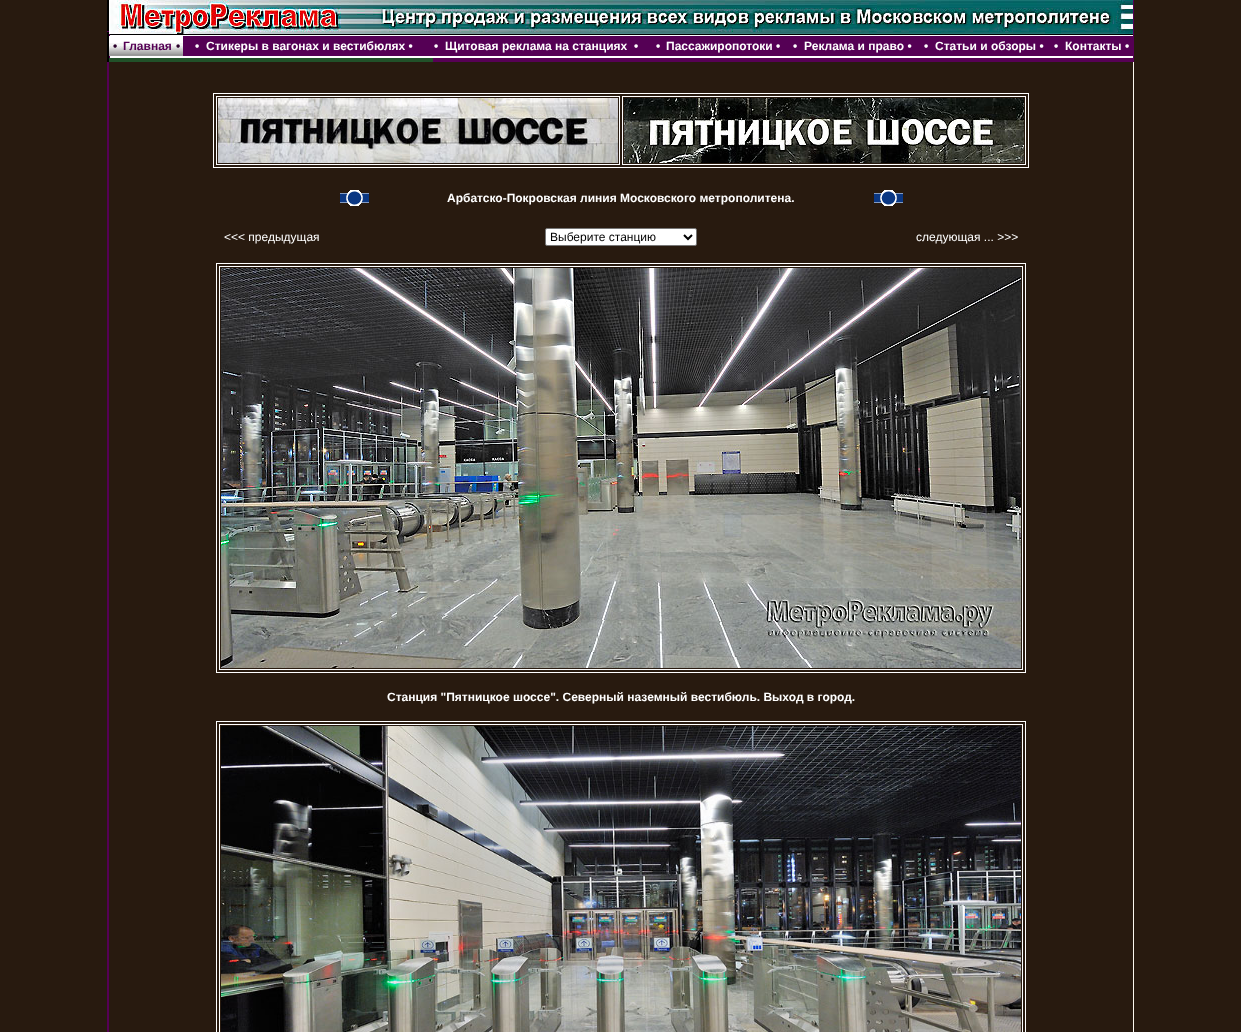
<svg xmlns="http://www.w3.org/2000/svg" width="1241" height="1032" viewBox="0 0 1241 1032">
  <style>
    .t1 { font: bold 12px Liberation Sans; fill: #2b002b; }
    .t2 { font: bold 12px Liberation Sans; fill: #505; }
    .t3 { font: bold 12px Liberation Sans; fill: #fff; }
    .t4 { font: 12px Liberation Sans; fill: #fff; }
    .t5 { font: 12px Liberation Sans; fill: #000; }
  </style>
  <rect width="100%" height="100%" fill="#281a0f"/>
  <rect x="1133" y="62" width="1" height="970" fill="#fbf7ee"/>
  <rect x="107" y="0" width="2" height="62" fill="#000"/>
  <rect x="107" y="31" width="2" height="1" fill="#570155"/>
  <rect x="183" y="36" width="950" height="20" fill="#505"/>
  <image x="109" y="0" width="1024" height="34" href="images/1.png"/>
  <rect x="109" y="34" width="1024" height="1" fill="#000"/>
  <rect x="109" y="35" width="1024" height="1" fill="#fff"/>
  <rect x="109" y="34" width="1" height="2" fill="#570155"/>
  <image x="109" y="36" width="74" height="20" href="images/2.png"/>
  <text x="113" y="50" class="t1">•</text>
  <text x="123" y="50" class="t2">Главная</text>
  <text x="176" y="50" class="t1">•</text>
  <text x="195" y="50" class="t3">•</text>
  <text x="206" y="50" class="t3">Стикеры в вагонах и вестибюлях •</text>
  <text x="434" y="50" class="t3">•</text>
  <text x="445" y="50" class="t3" xml:space="preserve">Щитовая реклама на станциях  •</text>
  <text x="656" y="50" class="t3">•</text>
  <text x="666" y="50" class="t3">Пассажиропотоки •</text>
  <text x="793" y="50" class="t3">•</text>
  <text x="804" y="50" class="t3">Реклама и право •</text>
  <text x="924" y="50" class="t3">•</text>
  <text x="935" y="50" class="t3">Статьи и обзоры •</text>
  <text x="1054" y="50" class="t3">•</text>
  <text x="1065" y="50" class="t3">Контакты •</text>
  <rect x="109" y="56" width="1024" height="2" fill="#fff"/>
  <rect x="109" y="56" width="1" height="2" fill="#570155"/>
  <rect x="109" y="58" width="324" height="4" fill="#215129"/>
  <rect x="433" y="58" width="700" height="4" fill="#570155"/>
  <rect x="1133" y="0" width="1" height="62" fill="#505"/>
  <rect x="107" y="62" width="2" height="970" fill="#505"/>
  <rect x="213.5" y="93.5" width="815" height="74" fill="none" stroke="#fff"/>
  <rect x="216.5" y="96.5" width="403" height="68" fill="none" stroke="#fff"/>
  <image x="218" y="98" width="400" height="65" href="images/3.png"/>
  <rect x="622.5" y="96.5" width="403" height="68" fill="none" stroke="#fff"/>
  <image x="624" y="98" width="400" height="65" href="images/4.png"/>
  <image x="340" y="190" width="29" height="16" href="images/5.png"/>
  <text x="447" y="202" class="t3">Арбатско-Покровская линия Московского метрополитена.</text>
  <image x="874" y="190" width="29" height="16" href="images/5.png"/>
  <text x="224" y="241" class="t4">&lt;&lt;&lt; предыдущая</text>
  <rect x="545.5" y="228.5" width="151" height="17" rx="1.5" fill="#fff" stroke="#767676"/>
  <path d="M684 235L688 239L692 235" fill="none" stroke="#000" stroke-width="2"/>
  <text x="550" y="241" class="t5">Выберите станцию</text>
  <text x="916" y="241" class="t4">следующая ... &gt;&gt;&gt;</text>
  <rect x="216.5" y="263.5" width="809" height="409" fill="none" stroke="#fff"/>
  <rect x="219.5" y="266.5" width="803" height="403" fill="none" stroke="#fff"/>
  <image x="221" y="268" width="800" height="400" href="images/6.png"/>
  <text x="387" y="701" class="t3">Станция "Пятницкое шоссе". Северный наземный вестибюль. Выход в город.</text>
  <rect x="216.5" y="721.5" width="809" height="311" fill="none" stroke="#fff"/>
  <rect x="219.5" y="724.5" width="803" height="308" fill="none" stroke="#fff"/>
  <image x="221" y="726" width="800" height="306" href="images/7.png"/>
</svg>
